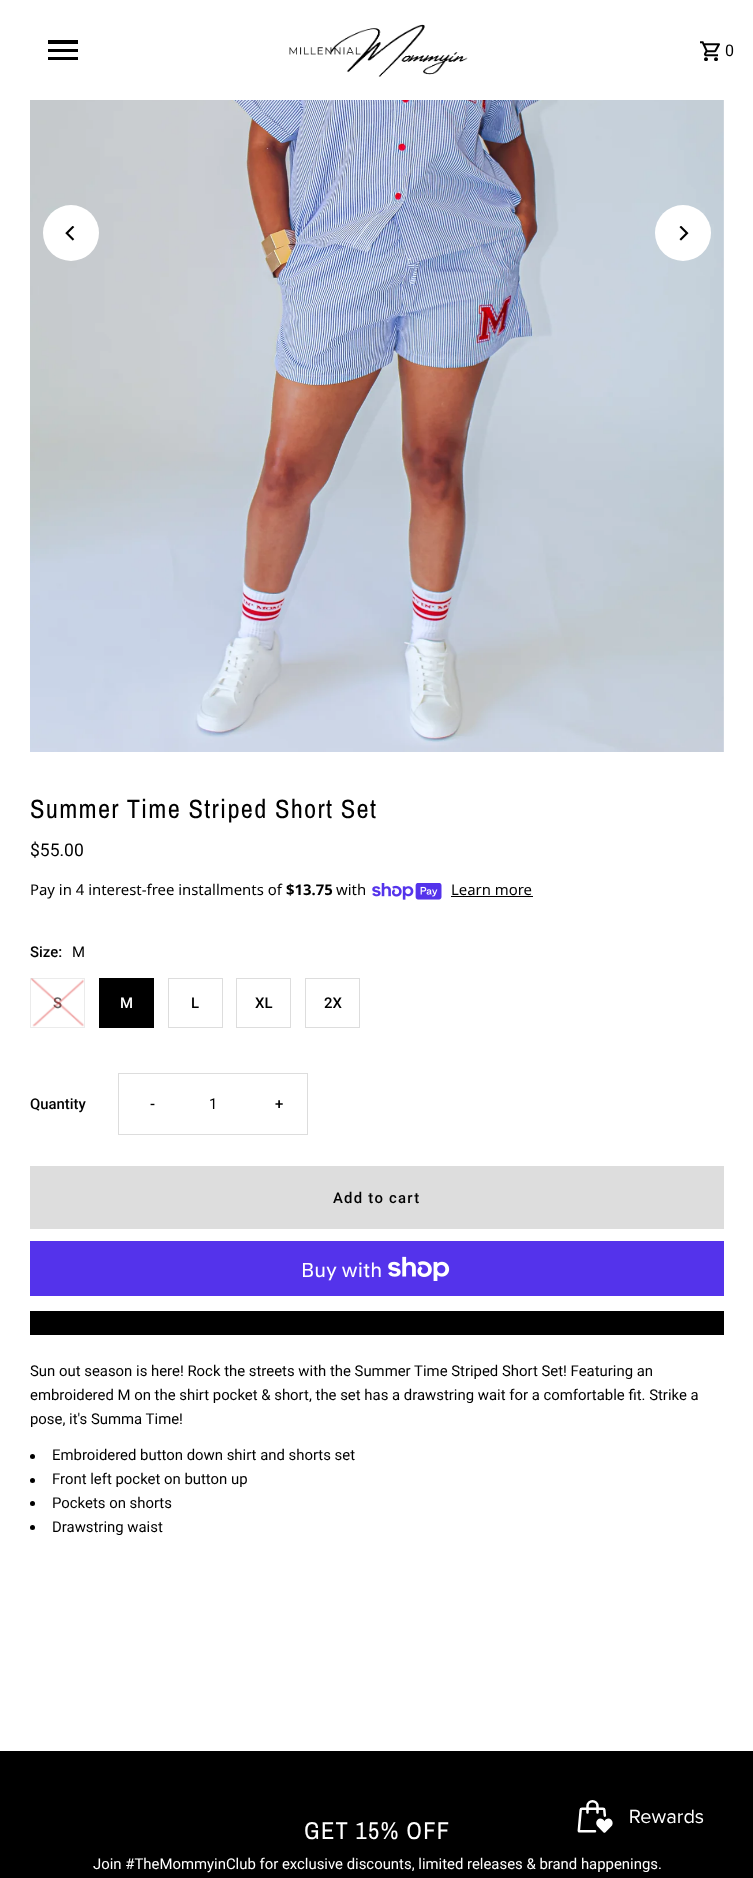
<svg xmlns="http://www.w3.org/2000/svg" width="753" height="1878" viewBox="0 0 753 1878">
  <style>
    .t1 { font: 16px Roboto; letter-spacing: 1.25px; fill: #000; }
    .t2 { font: 26.5px Archivo Narrow; letter-spacing: 1.3px; fill: #000; }
    .t3 { font: 17.5px Roboto; fill: #000; }
    .t4 { font: 14.9px Noto Sans; fill: #000; }
    .t5 { font: bold 14.9px Noto Sans; fill: #000; }
    .t6 { font: 500 14.9px Roboto; fill: #000; }
    .t7 { font: 14.9px Roboto; fill: #000; }
    .t8 { font: 500 14.9px Roboto; fill: #666; }
    .t9 { font: 500 14.9px Roboto; fill: #fff; }
    .t10 { font: 500 14.9px Roboto; letter-spacing: 1.25px; fill: #000; }
    .t11 { font: 20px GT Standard; fill: #fff; }
    .t12 { font: 24.5px Archivo Narrow; letter-spacing: 1.25px; fill: #fff; }
    .t13 { font: 14.9px Roboto; fill: #fff; }
  </style>
  <rect width="100%" height="100%" fill="#fff"/>
  <rect x="48" y="57" width="30" height="3" fill="#000"/>
  <rect x="48" y="49" width="30" height="3" fill="#000"/>
  <rect x="48" y="40" width="30" height="4" fill="#000"/>
  <image x="289" y="24" width="179" height="53" href="images/1.png"/>
  <image x="700" y="41" width="20" height="20" href="images/2.png"/>
  <text x="725" y="56" class="t1">0</text>
  <image x="30" y="100" width="694" height="652" href="images/3.png"/>
  <circle cx="71" cy="233" r="28" fill="#fff"/>
  <image x="65" y="226" width="10" height="15" href="images/4.png"/>
  <circle cx="683" cy="233" r="28" fill="#fff"/>
  <image x="679" y="226" width="10" height="15" href="images/5.png"/>
  <text x="30" y="818" class="t2">Summer Time Striped Short Set</text>
  <text x="30" y="856" class="t3">$55.00</text>
  <text x="30" y="895" class="t4">Pay in 4 interest-free installments of</text>
  <text x="286" y="895" class="t5">$13.75</text>
  <text x="336" y="895" class="t4">with</text>
  <image x="372" y="883" width="70" height="17" href="images/6.png"/>
  <text x="451" y="895" class="t4">Learn more</text>
  <rect x="451" y="896" width="82" height="1" fill="#000"/>
  <text x="30" y="957" class="t6">Size:</text>
  <text x="72" y="957" class="t7">M</text>
  <rect x="30.5" y="978.5" width="54" height="49" fill="none" stroke="#ebebeb"/>
  <text x="53" y="1008" class="t8">S</text>
  <image x="31" y="978" width="53" height="49" href="images/7.png"/>
  <rect x="99" y="978" width="55" height="50" fill="#000"/>
  <text x="120" y="1008" class="t9">M</text>
  <rect x="168.5" y="978.5" width="54" height="49" fill="none" stroke="#ddd"/>
  <text x="191" y="1008" class="t6">L</text>
  <rect x="236.5" y="978.5" width="54" height="49" fill="none" stroke="#ddd"/>
  <text x="255" y="1008" class="t6">XL</text>
  <rect x="305.5" y="978.5" width="54" height="49" fill="none" stroke="#ddd"/>
  <text x="324" y="1008" class="t6">2X</text>
  <text x="30" y="1109" class="t6">Quantity</text>
  <rect x="118.5" y="1073.5" width="189" height="61" fill="none" stroke="#ddd"/>
  <text x="150" y="1109" class="t10">-</text>
  <text x="209" y="1109" class="t7">1</text>
  <text x="275" y="1109" class="t10">+</text>
  <rect x="30" y="1166" width="694" height="63" fill="#ddd"/>
  <text x="333" y="1203" class="t10">Add to cart</text>
  <rect x="30" y="1241" width="694" height="55" fill="#5433eb"/>
  <text x="301" y="1277" class="t11">Buy with</text>
  <image x="388" y="1256" width="62" height="25" href="images/8.png"/>
  <rect x="30" y="1311" width="694" height="24" fill="#000"/>
  <text x="30" y="1376" class="t7">Sun out season is here! Rock the streets with the Summer Time Striped Short Set! Featuring an</text>
  <text x="30" y="1400" class="t7">embroidered M on the shirt pocket &amp; short, the set has a drawstring wait for a comfortable fit. Strike a</text>
  <text x="30" y="1424" class="t7">pose, it's Summa Time!</text>
  <circle cx="32.5" cy="1456.5" r="2.5" fill="#000"/>
  <text x="52" y="1460" class="t7">Embroidered button down shirt and shorts set</text>
  <circle cx="32.5" cy="1480.5" r="2.5" fill="#000"/>
  <text x="52" y="1484" class="t7">Front left pocket on button up</text>
  <circle cx="32.5" cy="1503.5" r="2.5" fill="#000"/>
  <text x="52" y="1508" class="t7">Pockets on shorts</text>
  <circle cx="32.5" cy="1527.5" r="2.5" fill="#000"/>
  <text x="52" y="1532" class="t7">Drawstring waist</text>
  <rect x="0" y="1751" width="753" height="127" fill="#000"/>
  <image x="577" y="1800" width="127" height="33" href="images/9.png"/>
  <text x="304" y="1839" class="t12">GET 15% OFF</text>
  <text x="93" y="1869" class="t13">Join #TheMommyinClub for exclusive discounts, limited releases &amp; brand happenings.</text>
</svg>
